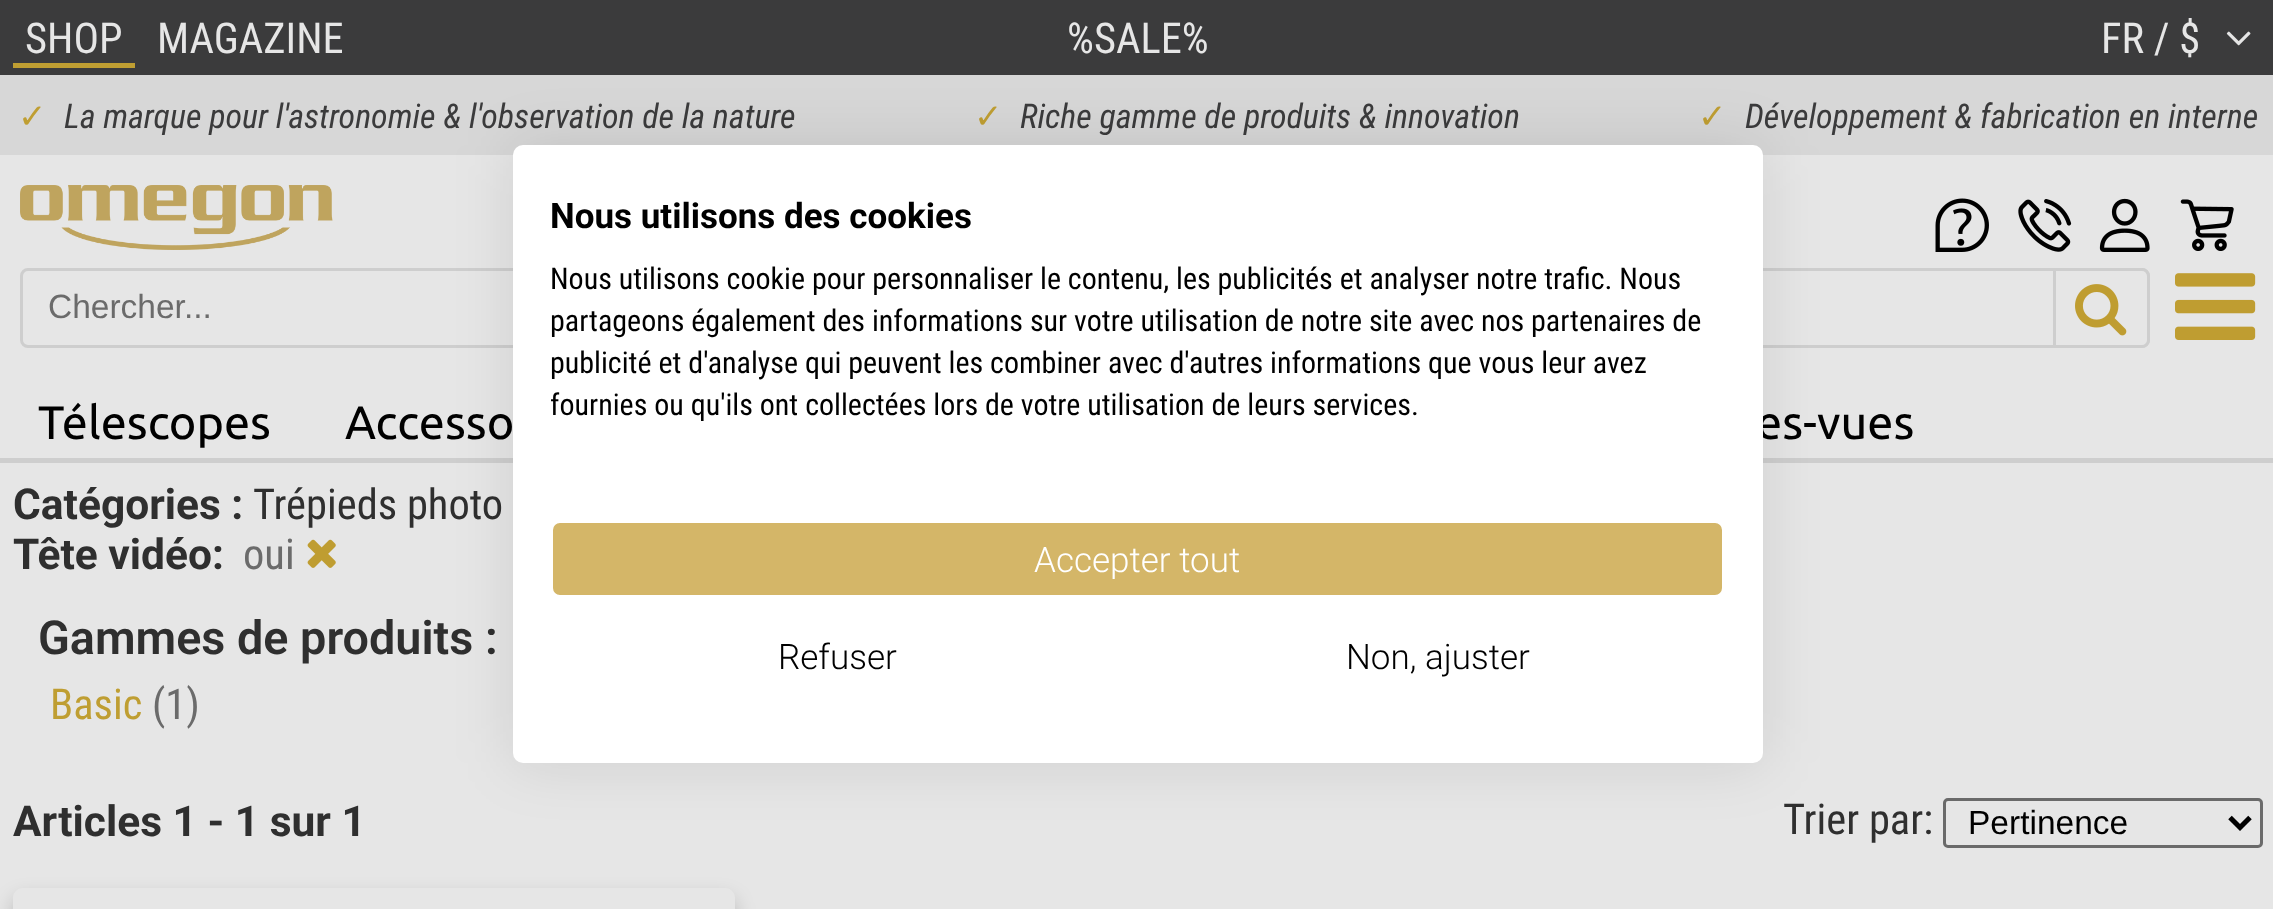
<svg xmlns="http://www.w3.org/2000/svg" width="2273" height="909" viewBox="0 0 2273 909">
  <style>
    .t1 { font: 42.5px Roboto Condensed; fill: #e6e6e6; }
    .t2 { font: 34px DejaVu Sans; fill: #bf9e32; }
    .t3 { font: italic 34px Roboto Condensed; fill: #3b3b3c; }
    .t4 { font: 33.5px Liberation Sans; fill: #6b6b6b; }
    .t5 { font: 46.75px Ubuntu; fill: #000; }
    .t6 { font: bold 42.5px Roboto; fill: #2f2f2f; }
    .t7 { font: 42.5px Roboto Condensed; fill: #2f2f2f; }
    .t8 { font: 42.5px Roboto Condensed; fill: #6b6b6b; }
    .t9 { font: 600 46.75px Roboto; fill: #2f2f2f; }
    .t10 { font: 42.5px Roboto Condensed; fill: #bf9e32; }
    .t11 { font: 33.5px Liberation Sans; fill: #000; }
    .t12 { font: bold 35px Roboto; fill: #000; }
    .t13 { font: 30px Roboto Condensed; fill: #000; }
    .t14 { font: 300 35px Roboto; fill: #fff; }
    .t15 { font: 300 35px Roboto; fill: #000; }
  </style>
  <defs>
    <clipPath id="clip1"><path d="M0 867H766V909H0ZM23 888H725C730.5 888 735 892.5 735 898V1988C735 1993.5 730.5 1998 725 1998H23C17.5 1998 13 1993.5 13 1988V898C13 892.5 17.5 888 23 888Z" clip-rule="evenodd"/></clipPath>
  </defs>
  <rect width="100%" height="100%" fill="#e6e6e6"/>
  <rect x="0" y="0" width="2273" height="75" fill="#3b3b3c"/>
  <text x="25" y="53" class="t1">SHOP</text>
  <rect x="13" y="63" width="122" height="5" fill="#bf9e32"/>
  <text x="157" y="53" class="t1">MAGAZINE</text>
  <text x="1067" y="53" class="t1">%SALE%</text>
  <text x="2101" y="53" class="t1">FR / $</text>
  <image x="2226" y="31" width="25" height="15" href="images/1.png"/>
  <rect x="0" y="75" width="2273" height="80" fill="#d7d7d7"/>
  <text x="18" y="128" class="t2">✓</text>
  <text x="64" y="128" class="t3">La marque pour l'astronomie &amp; l'observation de la nature</text>
  <text x="974" y="128" class="t2">✓</text>
  <text x="1020" y="128" class="t3">Riche gamme de produits &amp; innovation</text>
  <text x="1698" y="128" class="t2">✓</text>
  <text x="1745" y="128" class="t3">Développement &amp; fabrication en interne</text>
  <image x="20" y="185" width="313" height="65" href="images/2.png"/>
  <image x="1935" y="198" width="54" height="54" href="images/3.png"/>
  <image x="2018" y="199" width="54" height="53" href="images/4.png"/>
  <image x="2099" y="198" width="51" height="54" href="images/5.png"/>
  <image x="2180" y="199" width="54" height="52" href="images/6.png"/>
  <rect x="21.5" y="269.5" width="2127" height="77" rx="6.5" fill="none" stroke="#cecece" stroke-width="3"/>
  <text x="48" y="318" class="t4">Chercher...</text>
  <path d="M2054.5 269.5H2142C2145.5 269.5 2148.5 272.5 2148.5 276V340C2148.5 343.5 2145.5 346.5 2142 346.5H2054.5Z" fill="#e6e6e6" stroke="#cecece" stroke-width="3"/>
  <image x="2075" y="284" width="52" height="52" href="images/7.png"/>
  <image x="2175" y="273" width="81" height="67" href="images/8.png"/>
  <text x="38" y="439" class="t5">Télescopes</text>
  <text x="345" y="439" class="t5">Accesso</text>
  <text x="1756" y="439" class="t5">es-vues</text>
  <rect x="0" y="458" width="2273" height="5" fill="#cecece"/>
  <text x="13" y="519" class="t6">Catégories :</text>
  <text x="253" y="519" class="t7">Trépieds photo</text>
  <text x="13" y="569" class="t6">Tête vidéo:</text>
  <text x="243" y="569" class="t8">oui</text>
  <image x="307" y="539" width="29" height="29" href="images/9.png"/>
  <text x="38" y="654" class="t9">Gammes de produits :</text>
  <text x="50" y="719" class="t10">Basic</text>
  <text x="152" y="719" class="t8">(1)</text>
  <text x="13" y="836" class="t6">Articles 1 - 1 sur 1</text>
  <text x="1783" y="834" class="t7">Trier par:</text>
  <rect x="1944.5" y="799.5" width="317" height="47" rx="3.5" fill="none" stroke="#6a6a6a" stroke-width="3"/>
  <path d="M2230 817.5L2240 827.5L2250 817.5" fill="none" stroke="#000" stroke-width="5"/>
  <text x="1968" y="834" class="t11">Pertinence</text>
  <g clip-path="url(#clip1)">
    <rect x="13" y="898" width="722" height="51" rx="10" fill="#00000033" filter="blur(10px)"/>
  </g>
  <rect x="513" y="145" width="1250" height="618" rx="10" fill="#0000001a" filter="blur(30px)"/>
  <rect x="513" y="145" width="1250" height="618" rx="10" fill="#fff"/>
  <text x="550" y="228" class="t12">Nous utilisons des cookies</text>
  <text x="550" y="289" class="t13">Nous utilisons cookie pour personnaliser le contenu, les publicités et analyser notre trafic. Nous</text>
  <text x="550" y="331" class="t13">partageons également des informations sur votre utilisation de notre site avec nos partenaires de</text>
  <text x="550" y="373" class="t13">publicité et d'analyse qui peuvent les combiner avec d'autres informations que vous leur avez</text>
  <text x="550" y="415" class="t13">fournies ou qu'ils ont collectées lors de votre utilisation de leurs services.</text>
  <rect x="551.5" y="521.5" width="1172" height="75" rx="8.5" fill="#d4b668" stroke="#fff" stroke-width="3"/>
  <text x="1034" y="572" class="t14">Accepter tout</text>
  <text x="778" y="669" class="t15">Refuser</text>
  <text x="1346" y="669" class="t15">Non, ajuster</text>
</svg>
